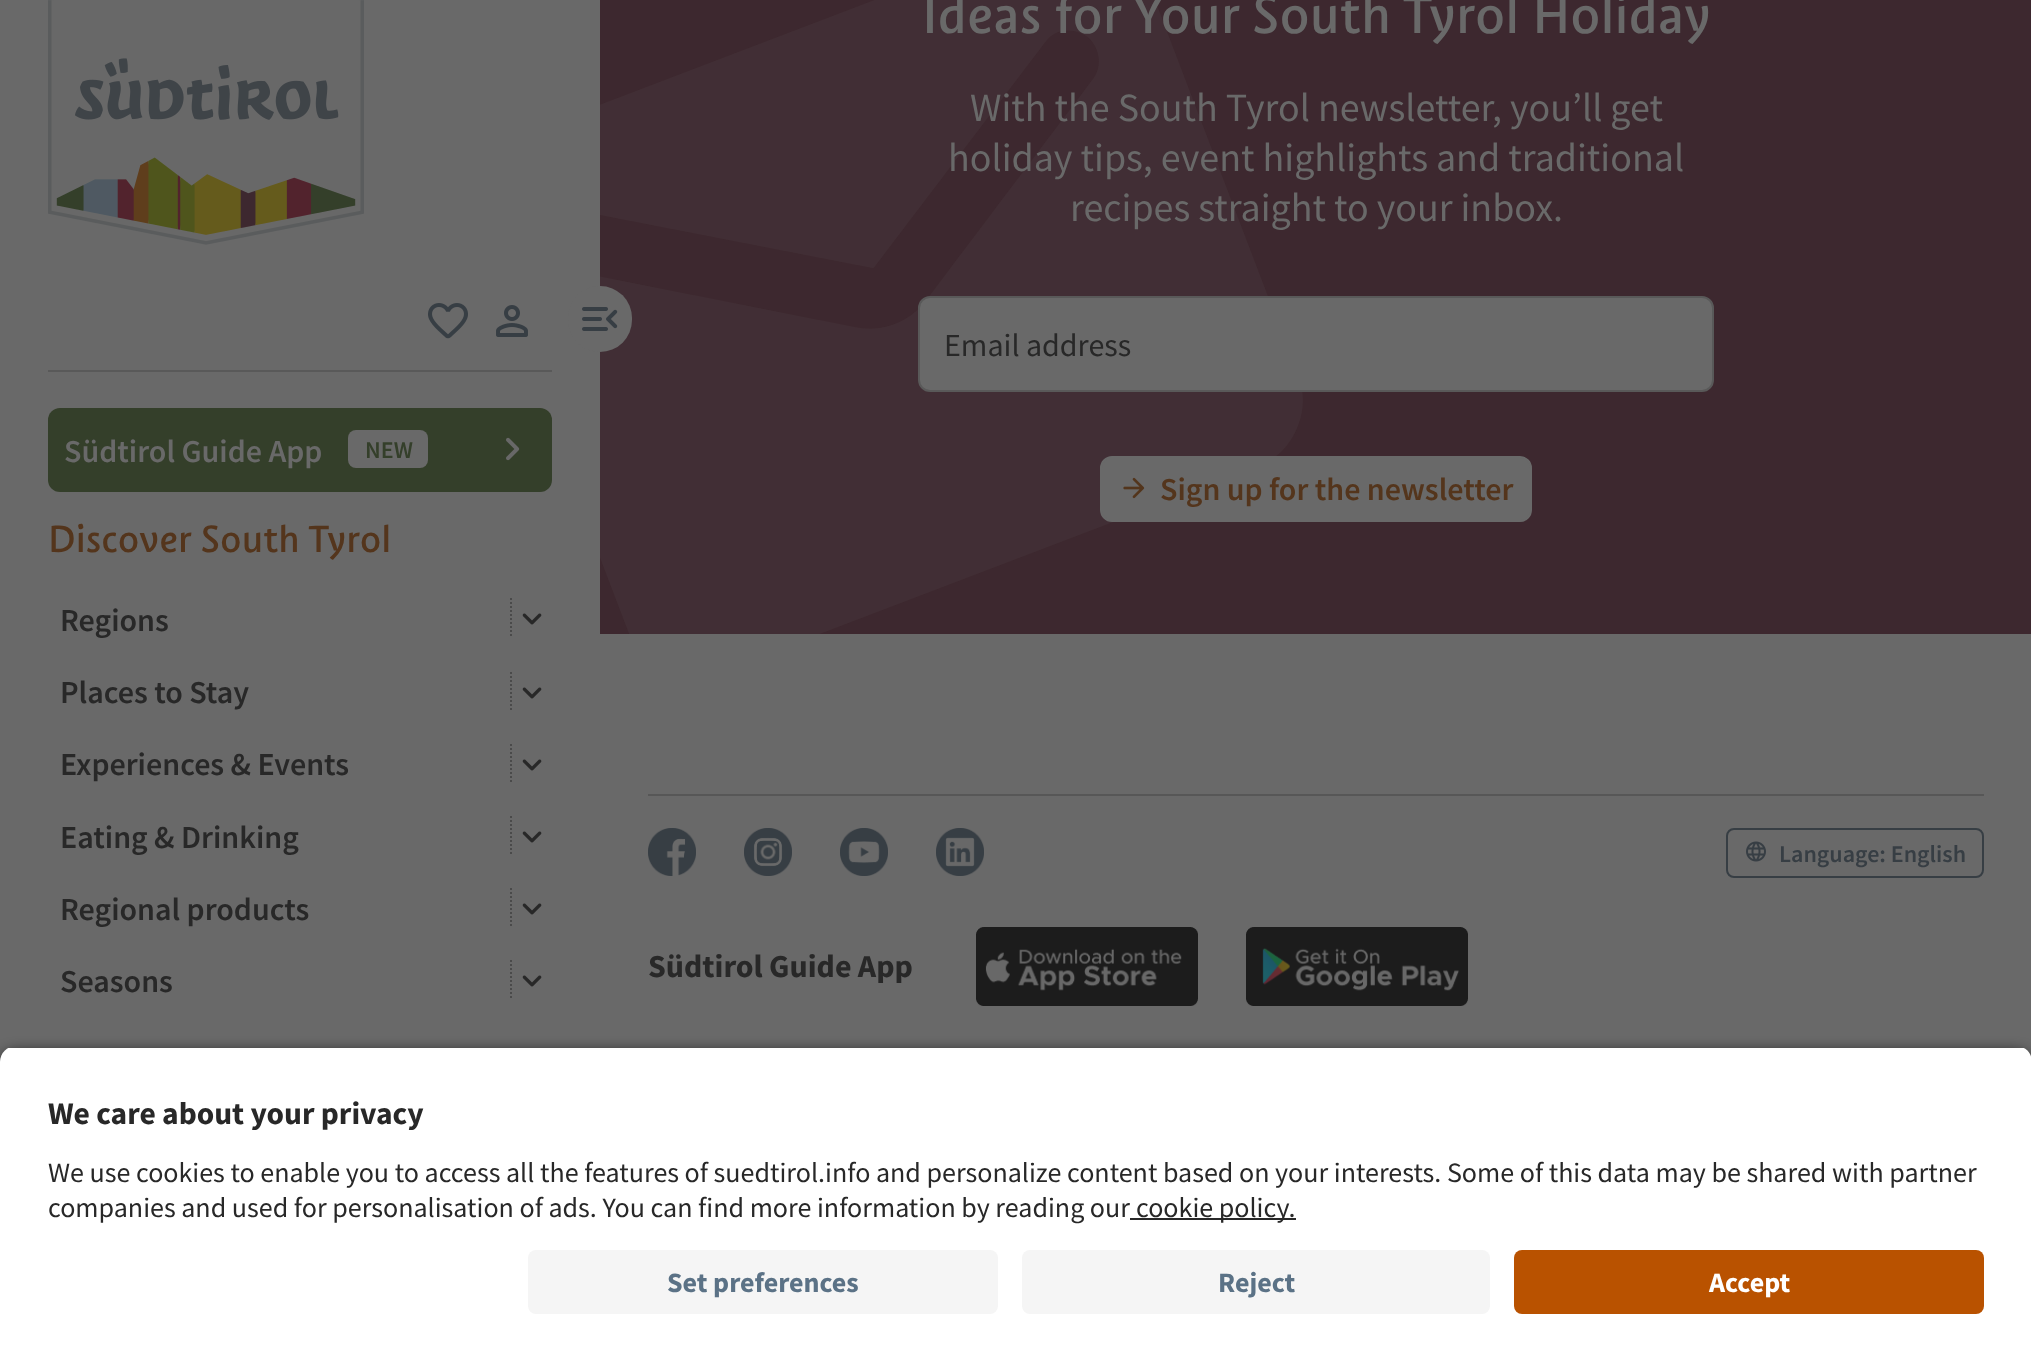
<svg xmlns="http://www.w3.org/2000/svg" width="2031" height="1362" viewBox="0 0 2031 1362">
  <style>
    .t1 { font: 600 32px Source Sans Pro; fill: #696969; }
    .t2 { font: 600 24px Source Sans Pro; fill: #343f2a; }
    .t3 { font: 40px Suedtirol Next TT; fill: #54351c; }
    .t4 { font: 600 32px Source Sans Pro; fill: #282828; }
    .t5 { font: 56px Suedtirol Next TT; fill: #696969; }
    .t6 { font: 40px Source Sans Pro; fill: #696969; }
    .t7 { font: 32px Source Sans Pro; fill: #282828; }
    .t8 { font: 600 32px Source Sans Pro; fill: #54351c; }
    .t9 { font: 600 24px Source Sans Pro; fill: #373e44; }
    .t10 { font: bold 32px Source Sans Pro; fill: #282828; }
    .t11 { font: bold 31.5px Source Sans Pro; fill: #282828; }
    .t12 { font: 28px Source Sans Pro; fill: #282828; }
    .t13 { font: bold 28px Source Sans Pro; fill: #5b7286; }
    .t14 { font: bold 28px Source Sans Pro; fill: #fff; }
  </style>
  <defs>
    <clipPath id="clip1"><path d="M16 1046H2016C2025 1046 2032 1053 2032 1062V1234H0V1062C0 1053 7 1046 16 1046Z"/></clipPath>
  </defs>
  <rect width="100%" height="100%" fill="#696969"/>
  <image x="48" y="0" width="316" height="245" href="images/1.png"/>
  <image x="428" y="303" width="40" height="36" href="images/2.png"/>
  <image x="496" y="305" width="32" height="32" href="images/3.png"/>
  <rect x="600" y="0" width="1431" height="634" fill="#3d282f"/>
  <image x="600" y="0" width="703" height="634" href="images/7.png"/>
  <rect x="568" y="286" width="64" height="66" rx="32" fill="#696969"/>
  <image x="582" y="307" width="36" height="24" href="images/4.png"/>
  <rect x="48" y="370" width="504" height="2" fill="#595959"/>
  <rect x="48" y="408" width="504" height="84" rx="12" fill="#343f2a"/>
  <text x="64" y="462" class="t1">Südtirol Guide App</text>
  <rect x="348" y="430" width="80" height="38" rx="8" fill="#696969"/>
  <text x="365" y="458" class="t2">NEW</text>
  <image x="506" y="437" width="14" height="24" href="images/5.png"/>
  <text x="48" y="552" class="t3">Discover South Tyrol</text>
  <text x="60" y="631" class="t4">Regions</text>
  <path d="M511 598V638" fill="none" stroke="#4a4a4a" stroke-width="2" stroke-dasharray="2 2"/>
  <image x="522" y="613" width="20" height="12" href="images/6.png"/>
  <text x="60" y="703" class="t4">Places to Stay</text>
  <path d="M511 672V712" fill="none" stroke="#4a4a4a" stroke-width="2" stroke-dasharray="2 2"/>
  <image x="522" y="687" width="20" height="12" href="images/6.png"/>
  <text x="60" y="775" class="t4">Experiences &amp; Events</text>
  <path d="M511 744V784" fill="none" stroke="#4a4a4a" stroke-width="2" stroke-dasharray="2 2"/>
  <image x="522" y="759" width="20" height="12" href="images/6.png"/>
  <text x="60" y="848" class="t4">Eating &amp; Drinking</text>
  <path d="M511 816V856" fill="none" stroke="#4a4a4a" stroke-width="2" stroke-dasharray="2 2"/>
  <image x="522" y="831" width="20" height="12" href="images/6.png"/>
  <text x="60" y="920" class="t4">Regional products</text>
  <path d="M511 888V928" fill="none" stroke="#4a4a4a" stroke-width="2" stroke-dasharray="2 2"/>
  <image x="522" y="903" width="20" height="12" href="images/6.png"/>
  <text x="60" y="992" class="t4">Seasons</text>
  <path d="M511 960V1000" fill="none" stroke="#4a4a4a" stroke-width="2" stroke-dasharray="2 2"/>
  <image x="522" y="975" width="20" height="12" href="images/6.png"/>
  <text x="922" y="33" class="t5">Ideas for Your South Tyrol Holiday</text>
  <text x="970" y="121" class="t6">With the South Tyrol newsletter, you’ll get</text>
  <text x="948" y="171" class="t6">holiday tips, event highlights and traditional</text>
  <text x="1070" y="221" class="t6">recipes straight to your inbox.</text>
  <rect x="919" y="297" width="794" height="94" rx="11" fill="#696969" stroke="#595959" stroke-width="2"/>
  <text x="944" y="356" class="t7">Email address</text>
  <rect x="1101" y="457" width="430" height="64" rx="11" fill="#696969" stroke="#696969" stroke-width="2"/>
  <image x="1123" y="477" width="22" height="22" href="images/8.png"/>
  <text x="1160" y="500" class="t8">Sign up for the newsletter</text>
  <rect x="648" y="794" width="1336" height="2" fill="#575757"/>
  <image x="648" y="828" width="48" height="48" href="images/9.png"/>
  <image x="744" y="828" width="48" height="48" href="images/10.png"/>
  <image x="840" y="828" width="48" height="48" href="images/11.png"/>
  <image x="936" y="828" width="48" height="48" href="images/12.png"/>
  <rect x="1727" y="829" width="256" height="48" rx="7" fill="none" stroke="#373e44" stroke-width="2"/>
  <image x="1746" y="841" width="20" height="21" href="images/13.png"/>
  <text x="1779" y="862" class="t9">Language: English</text>
  <text x="648" y="977" class="t10">Südtirol Guide App</text>
  <image x="976" y="927" width="222" height="79" href="images/14.png"/>
  <image x="1246" y="927" width="222" height="79" href="images/15.png"/>
  <rect x="0" y="1052" width="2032" height="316" rx="16" fill="#000000cc" filter="blur(7px)"/>
  <g clip-path="url(#clip1)">
    <rect x="0" y="1048" width="2031" height="186" fill="#fff"/>
  </g>
  <text x="48" y="1124" class="t11">We care about your privacy</text>
  <text x="48" y="1182" class="t12">We use cookies to enable you to access all the features of suedtirol.info and personalize content based on your interests. Some of this data may be shared with partner</text>
  <text x="48" y="1217" class="t12">companies and used for personalisation of ads. You can find more information by reading our</text>
  <rect x="1130" y="1218" width="166" height="2" fill="#282828"/>
  <text x="1136" y="1217" class="t12">cookie policy.</text>
  <rect x="0" y="1234" width="2031" height="128" fill="#fff"/>
  <rect x="528" y="1250" width="470" height="64" rx="8" fill="#f5f5f5"/>
  <text x="667" y="1292" class="t13">Set preferences</text>
  <rect x="1022" y="1250" width="468" height="64" rx="8" fill="#f5f5f5"/>
  <text x="1218" y="1292" class="t13">Reject</text>
  <rect x="1514" y="1250" width="470" height="64" rx="8" fill="#b95200"/>
  <text x="1709" y="1292" class="t14">Accept</text>
</svg>
